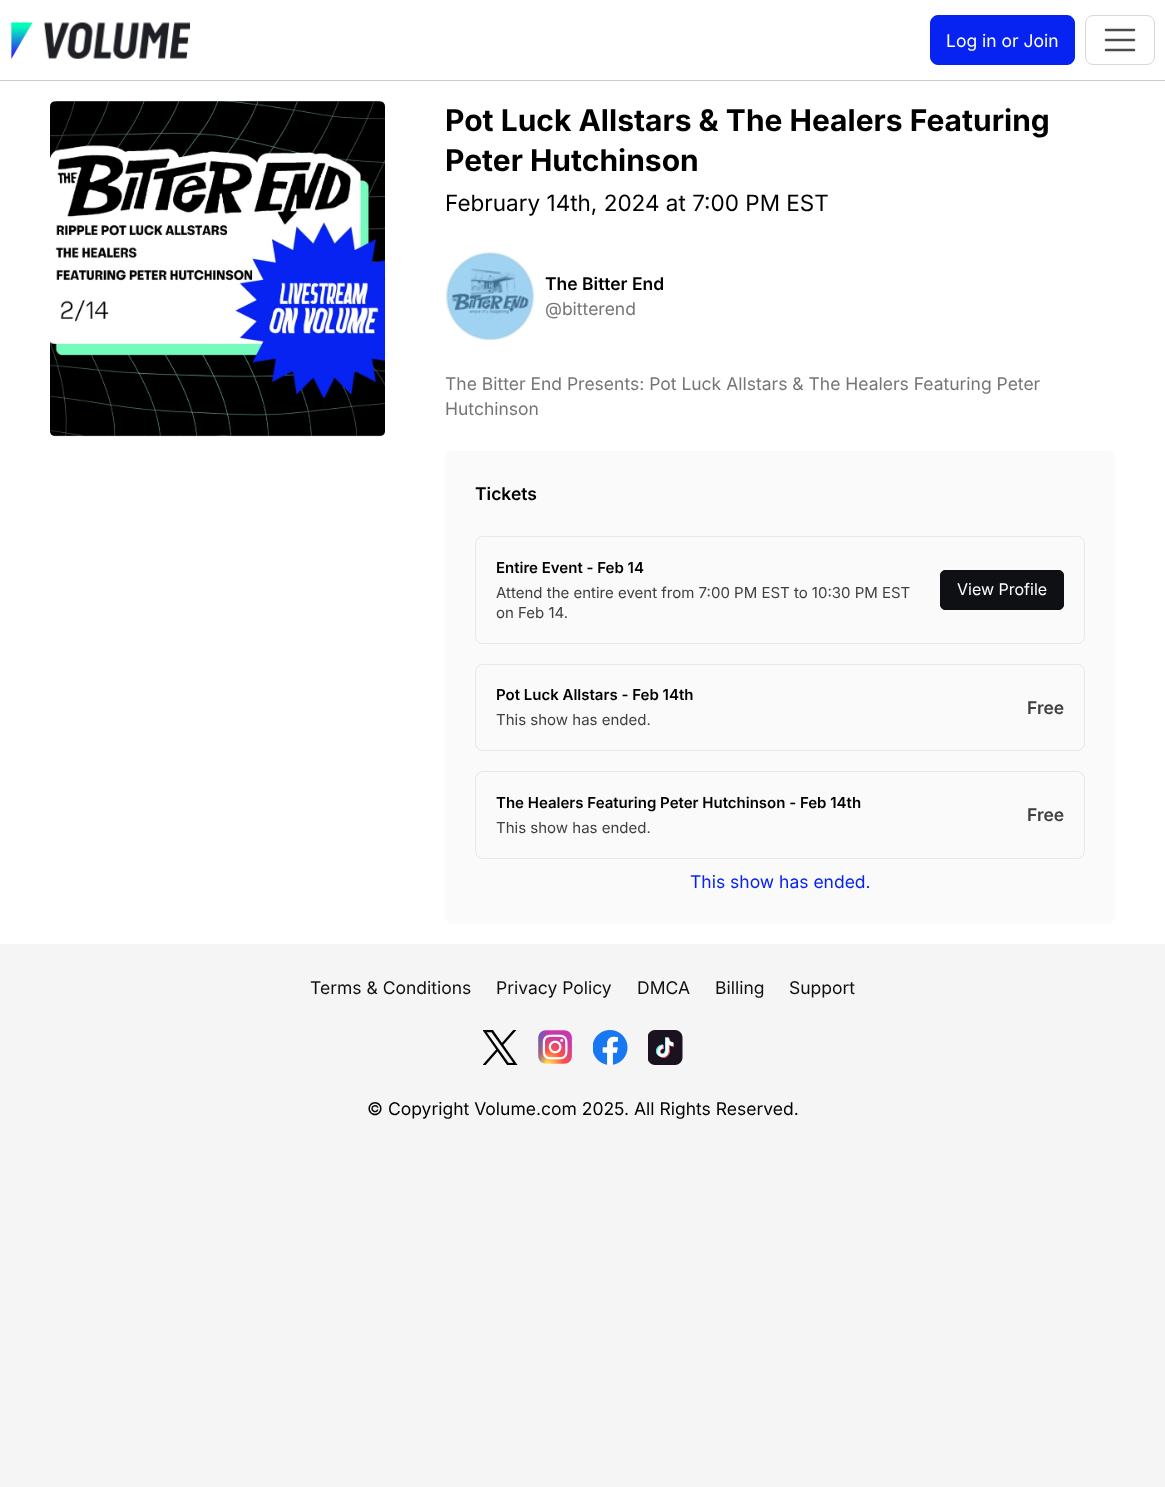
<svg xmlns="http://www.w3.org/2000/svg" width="1165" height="1487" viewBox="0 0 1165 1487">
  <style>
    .t1 { font: 17.5px Inter; fill: #fff; }
    .t2 { font: bold 30px Inter; fill: #000; }
    .t3 { font: 22.5px Inter; fill: #000; }
    .t4 { font: 600 17.5px Inter; fill: #000; }
    .t5 { font: 17.5px Inter; fill: #757575; }
    .t6 { font: 600 15px Inter; fill: #000; }
    .t7 { font: 15px Inter; fill: #3f4042; }
    .t8 { font: 16px Inter; fill: #fff; }
    .t9 { font: 600 17.5px Inter; fill: #3f4042; }
    .t10 { font: 17.5px Inter; fill: #0623f2; }
    .t11 { font: 17.5px Inter; fill: #0f1013; }
    .t12 { font: 17.5px Inter; fill: #000; }
  </style>
  <rect width="100%" height="100%" fill="#f5f5f6"/>
  <rect x="0" y="0" width="1165" height="80" fill="#fff"/>
  <rect x="0" y="80" width="1165" height="1" fill="#ccc"/>
  <image x="11" y="22" width="179" height="37" href="images/1.png"/>
  <rect x="930.5" y="15.5" width="144" height="49" rx="7.5" fill="#0623f2" stroke="#0623f2"/>
  <text x="946" y="47" class="t1">Log in or Join</text>
  <rect x="1085.5" y="15.5" width="69" height="49" rx="7.5" fill="none" stroke="#d9d9d9"/>
  <path d="M1106 30H1134M1106 40H1134M1106 50H1134" fill="none" stroke="#4b4c4e" stroke-width="2.5" stroke-linecap="round"/>
  <rect x="0" y="81" width="1165" height="863" fill="#fff"/>
  <rect x="50" y="101" width="335" height="335" rx="8" fill="#757575"/>
  <image x="50" y="101" width="335" height="336" href="images/2.png"/>
  <text x="445" y="131" class="t2">Pot Luck Allstars &amp; The Healers Featuring</text>
  <text x="445" y="171" class="t2">Peter Hutchinson</text>
  <text x="445" y="211" class="t3">February 14th, 2024 at 7:00 PM EST</text>
  <image x="445" y="251" width="90" height="90" href="images/3.png"/>
  <text x="545" y="290" class="t4">The Bitter End</text>
  <text x="545" y="315" class="t5">@bitterend</text>
  <text x="445" y="390" class="t5">The Bitter End Presents: Pot Luck Allstars &amp; The Healers Featuring Peter</text>
  <text x="445" y="415" class="t5">Hutchinson</text>
  <rect x="445" y="451" width="670" height="473" rx="8" fill="#fafafa"/>
  <text x="475" y="500" class="t4">Tickets</text>
  <rect x="475.5" y="536.5" width="609" height="107" rx="7.5" fill="none" stroke="#e7e7e7"/>
  <text x="496" y="573" class="t6">Entire Event - Feb 14</text>
  <text x="496" y="598" class="t7">Attend the entire event from 7:00 PM EST to 10:30 PM EST</text>
  <text x="496" y="618" class="t7">on Feb 14.</text>
  <rect x="940.5" y="570.5" width="123" height="39" rx="4.5" fill="#0f1013" stroke="#0f1013"/>
  <text x="957" y="595" class="t8">View Profile</text>
  <rect x="475.5" y="664.5" width="609" height="86" rx="7.5" fill="none" stroke="#e7e7e7"/>
  <text x="496" y="700" class="t6">Pot Luck Allstars - Feb 14th</text>
  <text x="496" y="725" class="t7">This show has ended.</text>
  <text x="1027" y="714" class="t9">Free</text>
  <rect x="475.5" y="771.5" width="609" height="87" rx="7.5" fill="none" stroke="#e7e7e7"/>
  <text x="496" y="808" class="t6">The Healers Featuring Peter Hutchinson - Feb 14th</text>
  <text x="496" y="833" class="t7">This show has ended.</text>
  <text x="1027" y="821" class="t9">Free</text>
  <text x="690" y="888" class="t10">This show has ended.</text>
  <text x="310" y="994" class="t11">Terms &amp; Conditions</text>
  <text x="496" y="994" class="t11">Privacy Policy</text>
  <text x="637" y="994" class="t11">DMCA</text>
  <text x="715" y="994" class="t11">Billing</text>
  <text x="789" y="994" class="t11">Support</text>
  <image x="483" y="1030" width="35" height="35" href="images/4.png"/>
  <image x="538" y="1030" width="34" height="34" href="images/5.png"/>
  <image x="593" y="1030" width="35" height="35" href="images/6.png"/>
  <image x="648" y="1030" width="35" height="35" href="images/7.png"/>
  <text x="367" y="1115" class="t12">© Copyright Volume.com 2025. All Rights Reserved.</text>
</svg>
